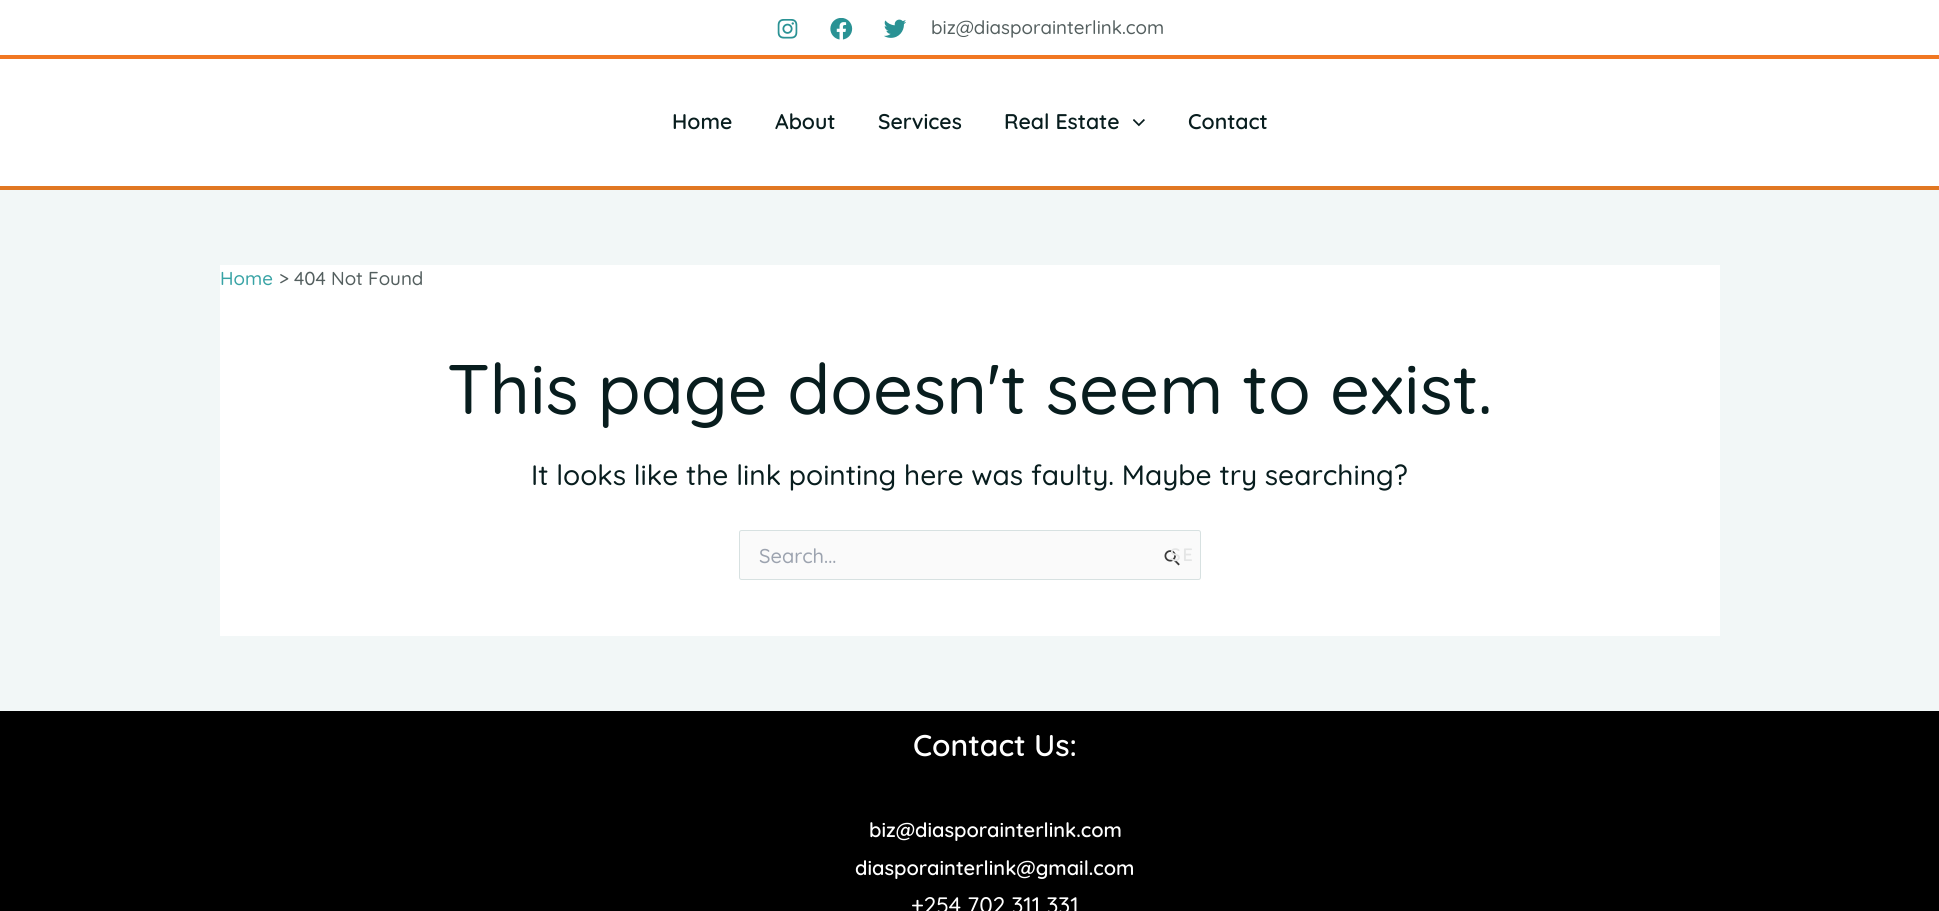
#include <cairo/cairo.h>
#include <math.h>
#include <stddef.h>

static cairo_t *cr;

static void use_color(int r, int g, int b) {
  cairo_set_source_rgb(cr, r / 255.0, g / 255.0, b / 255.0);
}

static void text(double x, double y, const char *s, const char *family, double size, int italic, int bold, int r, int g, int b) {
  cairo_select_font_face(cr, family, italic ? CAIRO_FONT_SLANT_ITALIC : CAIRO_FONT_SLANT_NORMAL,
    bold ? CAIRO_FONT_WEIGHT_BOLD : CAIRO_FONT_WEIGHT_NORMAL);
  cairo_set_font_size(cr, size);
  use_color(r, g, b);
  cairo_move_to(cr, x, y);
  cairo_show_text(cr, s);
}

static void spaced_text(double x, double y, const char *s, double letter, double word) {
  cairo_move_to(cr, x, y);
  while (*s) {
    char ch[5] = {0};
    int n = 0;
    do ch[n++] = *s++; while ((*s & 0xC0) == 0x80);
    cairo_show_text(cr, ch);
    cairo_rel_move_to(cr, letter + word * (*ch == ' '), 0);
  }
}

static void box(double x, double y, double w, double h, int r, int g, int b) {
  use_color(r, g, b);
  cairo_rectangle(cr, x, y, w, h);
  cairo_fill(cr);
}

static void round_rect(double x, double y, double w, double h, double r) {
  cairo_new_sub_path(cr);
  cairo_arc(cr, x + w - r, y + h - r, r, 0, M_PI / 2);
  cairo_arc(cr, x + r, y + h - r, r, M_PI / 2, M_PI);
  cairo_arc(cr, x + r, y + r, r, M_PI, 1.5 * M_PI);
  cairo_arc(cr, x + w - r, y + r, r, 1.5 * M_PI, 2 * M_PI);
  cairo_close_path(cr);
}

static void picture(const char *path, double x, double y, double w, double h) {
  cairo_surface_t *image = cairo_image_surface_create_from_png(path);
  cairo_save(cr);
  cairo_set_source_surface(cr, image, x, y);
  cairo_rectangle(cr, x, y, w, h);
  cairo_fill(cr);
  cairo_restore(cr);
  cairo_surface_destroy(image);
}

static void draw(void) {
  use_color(242, 247, 247);
  cairo_paint(cr);
  box(0, 0, 1939, 55, 255, 255, 255);
  box(0, 55, 1939, 4, 241, 119, 34);
  picture("img_01.png", 777, 19, 21, 20);
  picture("img_02.png", 830, 18, 23, 22);
  picture("img_03.png", 884, 19, 22, 19);
  box(0, 59, 1939, 127, 255, 255, 255);
  box(0, 186, 1939, 4, 225, 119, 34);
  picture("img_04.png", 1133, 119, 12, 8);
  box(220, 265, 1500, 371, 255, 255, 255);
  use_color(250, 250, 250);
  round_rect(739.5, 530.5, 461, 49, 2);
  cairo_fill_preserve(cr);
  use_color(215, 225, 225);
  cairo_set_line_width(cr, 1);
  cairo_stroke(cr);
  picture("img_05.png", 1164, 550, 16, 16);
  box(0, 711, 1939, 200, 0, 0, 0);
  text(931, 34, "biz@diasporainterlink.com", "Quicksand Medium", 18.75, 0, 0, 84, 95, 95);
  text(672, 129, "Home", "Quicksand SemiBold", 21.25, 0, 0, 8, 29, 30);
  text(775, 129, "About", "Quicksand SemiBold", 21.25, 0, 0, 8, 29, 30);
  text(878, 129, "Services", "Quicksand SemiBold", 21.25, 0, 0, 8, 29, 30);
  text(1004, 129, "Real Estate", "Quicksand SemiBold", 21.25, 0, 0, 8, 29, 30);
  text(1188, 129, "Contact", "Quicksand SemiBold", 21.25, 0, 0, 8, 29, 30);
  text(220, 285, "Home", "Quicksand Medium", 18.75, 0, 0, 56, 163, 165);
  text(279, 285, ">", "Quicksand Medium", 18.75, 0, 0, 84, 95, 95);
  text(294, 285, "404 Not Found", "Quicksand Medium", 18.75, 0, 0, 84, 95, 95);
  text(447, 414, "This page doesn't seem to exist.", "Quicksand Medium", 70, 0, 0, 8, 29, 30);
  text(531, 485, "It looks like the link pointing here was faulty. Maybe try searching?", "Quicksand Medium", 28.1, 0, 0, 8, 29, 30);
  text(759, 563, "Search...", "Quicksand Medium", 20, 0, 0, 156, 163, 175);
  cairo_select_font_face(cr, "Quicksand SemiBold", CAIRO_FONT_SLANT_NORMAL, CAIRO_FONT_WEIGHT_NORMAL);
  cairo_set_font_size(cr, 18);
  use_color(228, 229, 229);
  spaced_text(1170, 561, "SE", 2, 0);
  text(913, 756, "Contact Us:", "Quicksand SemiBold", 30, 0, 0, 255, 255, 255);
  text(869, 837, "biz@diasporainterlink.com", "Quicksand SemiBold", 20, 0, 0, 255, 255, 255);
  text(855, 875, "diasporainterlink@gmail.com", "Quicksand SemiBold", 20, 0, 0, 255, 255, 255);
  text(911, 913, "+254 702 311 331", "Quicksand Medium", 22.5, 0, 0, 255, 255, 255);
}

int main(void) {
  cairo_surface_t *surface = cairo_image_surface_create(CAIRO_FORMAT_RGB24, 1939, 911);
  cr = cairo_create(surface);
  cairo_font_options_t *options = cairo_font_options_create();
  cairo_font_options_set_hint_metrics(options, CAIRO_HINT_METRICS_OFF);
  cairo_font_options_set_hint_style(options, CAIRO_HINT_STYLE_NONE);
  cairo_set_font_options(cr, options);
  cairo_set_miter_limit(cr, 4);
  draw();
  cairo_surface_write_to_png(surface, "out.png");
  cairo_font_options_destroy(options);
  cairo_destroy(cr);
  cairo_surface_destroy(surface);
  return 0;
}
